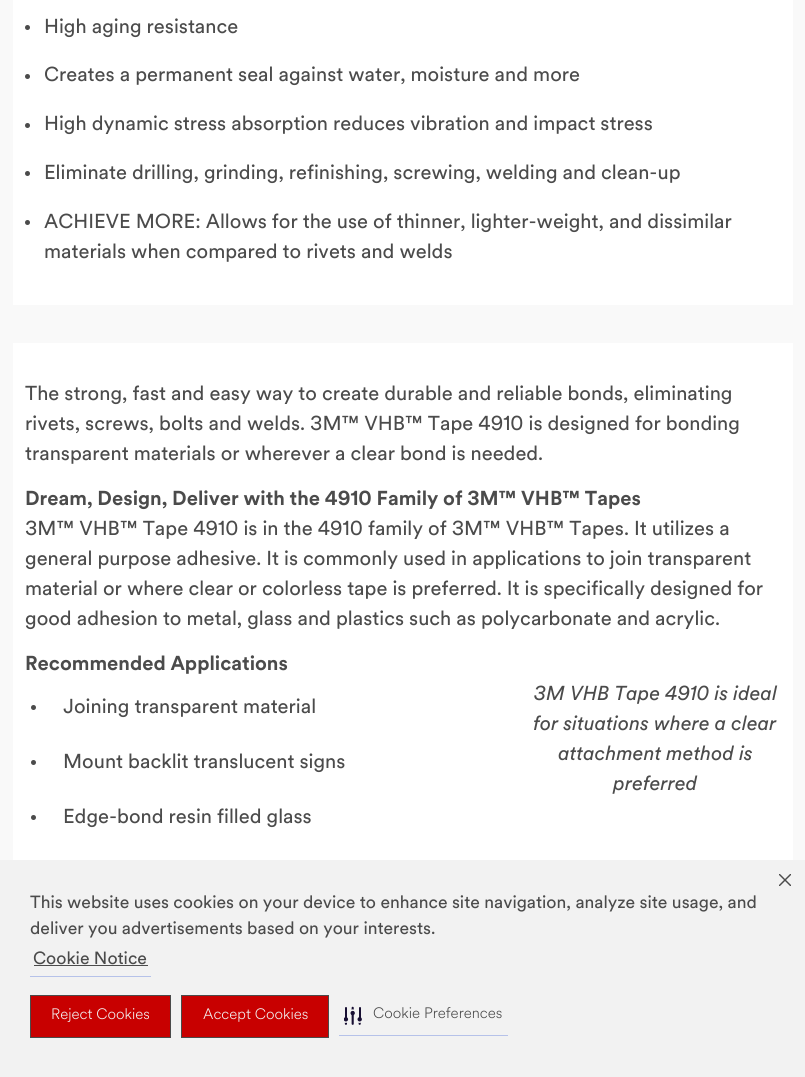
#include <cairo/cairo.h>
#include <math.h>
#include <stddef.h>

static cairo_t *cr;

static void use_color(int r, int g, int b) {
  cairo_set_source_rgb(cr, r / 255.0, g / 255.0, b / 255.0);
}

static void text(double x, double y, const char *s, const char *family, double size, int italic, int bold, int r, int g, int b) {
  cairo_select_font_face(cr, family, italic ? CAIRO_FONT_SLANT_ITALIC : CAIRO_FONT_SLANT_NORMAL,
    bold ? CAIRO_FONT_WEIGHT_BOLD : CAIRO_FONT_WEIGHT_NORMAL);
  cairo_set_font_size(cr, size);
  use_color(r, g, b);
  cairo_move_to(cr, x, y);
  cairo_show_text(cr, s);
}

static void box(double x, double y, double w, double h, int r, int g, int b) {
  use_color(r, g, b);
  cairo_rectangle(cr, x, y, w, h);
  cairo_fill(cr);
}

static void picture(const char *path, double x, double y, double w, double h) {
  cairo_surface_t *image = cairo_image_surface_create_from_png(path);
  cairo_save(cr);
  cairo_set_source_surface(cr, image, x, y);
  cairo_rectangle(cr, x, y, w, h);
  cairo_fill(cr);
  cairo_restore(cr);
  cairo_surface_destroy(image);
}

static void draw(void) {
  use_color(249, 249, 249);
  cairo_paint(cr);
  box(13, 0, 780, 305, 255, 255, 255);
  use_color(75, 75, 75);
  cairo_arc(cr, 27.5, 27.5, 2.5, 0, 2 * M_PI);
  cairo_fill(cr);
  cairo_arc(cr, 27.5, 76.5, 2.5, 0, 2 * M_PI);
  cairo_fill(cr);
  cairo_arc(cr, 27.5, 125.5, 2.5, 0, 2 * M_PI);
  cairo_fill(cr);
  cairo_arc(cr, 27.5, 173.5, 2.5, 0, 2 * M_PI);
  cairo_fill(cr);
  cairo_arc(cr, 27.5, 222.5, 2.5, 0, 2 * M_PI);
  cairo_fill(cr);
  box(13, 343, 780, 517, 255, 255, 255);
  use_color(75, 75, 75);
  cairo_arc(cr, 33.5, 707.5, 2.5, 0, 2 * M_PI);
  cairo_fill(cr);
  cairo_arc(cr, 33.5, 762.5, 2.5, 0, 2 * M_PI);
  cairo_fill(cr);
  cairo_arc(cr, 33.5, 817.5, 2.5, 0, 2 * M_PI);
  cairo_fill(cr);
  box(0, 860, 805, 217, 242, 242, 242);
  box(30, 976, 121, 1, 182, 194, 233);
  box(34, 965, 114, 1, 75, 75, 75);
  picture("img_01.png", 779, 874, 12, 12);
  use_color(200, 0, 0);
  cairo_rectangle(cr, 30.5, 995.5, 140, 42);
  cairo_fill_preserve(cr);
  use_color(75, 75, 75);
  cairo_set_line_width(cr, 1);
  cairo_stroke(cr);
  use_color(200, 0, 0);
  cairo_rectangle(cr, 181.5, 995.5, 147, 42);
  cairo_fill_preserve(cr);
  use_color(75, 75, 75);
  cairo_stroke(cr);
  box(339, 1035, 169, 1, 182, 194, 233);
  picture("img_02.png", 344, 1006, 18, 19);
  text(44, 33, "High aging resistance", "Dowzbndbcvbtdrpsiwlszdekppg", 20, 0, 0, 75, 75, 75);
  text(44, 81, "Creates a permanent seal against water, moisture and more", "Dowzbndbcvbtdrpsiwlszdekppg", 20, 0, 0, 75, 75, 75);
  text(44, 130, "High dynamic stress absorption reduces vibration and impact stress", "Dowzbndbcvbtdrpsiwlszdekppg", 20, 0, 0, 75, 75, 75);
  text(44, 179, "Eliminate drilling, grinding, refinishing, screwing, welding and clean-up", "Dowzbndbcvbtdrpsiwlszdekppg", 20, 0, 0, 75, 75, 75);
  text(44, 228, "ACHIEVE MORE: Allows for the use of thinner, lighter-weight, and dissimilar", "Dowzbndbcvbtdrpsiwlszdekppg", 20, 0, 0, 75, 75, 75);
  text(44, 258, "materials when compared to rivets and welds", "Dowzbndbcvbtdrpsiwlszdekppg", 20, 0, 0, 75, 75, 75);
  text(25, 400, "The strong, fast and easy way to create durable and reliable bonds, eliminating", "Dowzbndbcvbtdrpsiwlszdekppg", 20, 0, 0, 75, 75, 75);
  text(25, 430, "rivets, screws, bolts and welds. 3M™ VHB™ Tape 4910 is designed for bonding", "Dowzbndbcvbtdrpsiwlszdekppg", 20, 0, 0, 75, 75, 75);
  text(25, 460, "transparent materials or wherever a clear bond is needed.", "Dowzbndbcvbtdrpsiwlszdekppg", 20, 0, 0, 75, 75, 75);
  text(25, 505, "Dream, Design, Deliver with the 4910 Family of 3M™ VHB™ Tapes", "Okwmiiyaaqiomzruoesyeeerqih", 20, 0, 1, 75, 75, 75);
  text(25, 535, "3M™ VHB™ Tape 4910 is in the 4910 family of 3M™ VHB™ Tapes. It utilizes a", "Dowzbndbcvbtdrpsiwlszdekppg", 20, 0, 0, 75, 75, 75);
  text(25, 565, "general purpose adhesive. It is commonly used in applications to join transparent", "Dowzbndbcvbtdrpsiwlszdekppg", 20, 0, 0, 75, 75, 75);
  text(25, 595, "material or where clear or colorless tape is preferred. It is specifically designed for", "Dowzbndbcvbtdrpsiwlszdekppg", 20, 0, 0, 75, 75, 75);
  text(25, 625, "good adhesion to metal, glass and plastics such as polycarbonate and acrylic.", "Dowzbndbcvbtdrpsiwlszdekppg", 20, 0, 0, 75, 75, 75);
  text(25, 670, "Recommended Applications", "Okwmiiyaaqiomzruoesyeeerqih", 20, 0, 1, 75, 75, 75);
  text(63, 713, "Joining transparent material", "Dowzbndbcvbtdrpsiwlszdekppg", 20, 0, 0, 75, 75, 75);
  text(63, 768, "Mount backlit translucent signs", "Dowzbndbcvbtdrpsiwlszdekppg", 20, 0, 0, 75, 75, 75);
  text(63, 823, "Edge-bond resin filled glass", "Dowzbndbcvbtdrpsiwlszdekppg", 20, 0, 0, 75, 75, 75);
  text(534, 700, "3M VHB Tape 4910 is ideal", "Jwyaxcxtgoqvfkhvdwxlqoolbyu", 20, 1, 0, 75, 75, 75);
  text(533, 730, "for situations where a clear", "Jwyaxcxtgoqvfkhvdwxlqoolbyu", 20, 1, 0, 75, 75, 75);
  text(558, 760, "attachment method is", "Jwyaxcxtgoqvfkhvdwxlqoolbyu", 20, 1, 0, 75, 75, 75);
  text(613, 790, "preferred", "Jwyaxcxtgoqvfkhvdwxlqoolbyu", 20, 1, 0, 75, 75, 75);
  text(30, 908, "This website uses cookies on your device to enhance site navigation, analyze site usage, and", "Dowzbndbcvbtdrpsiwlszdekppg", 17.5, 0, 0, 75, 75, 75);
  text(30, 934, "deliver you advertisements based on your interests.", "Dowzbndbcvbtdrpsiwlszdekppg", 17.5, 0, 0, 75, 75, 75);
  text(33, 964, "Cookie Notice", "Dowzbndbcvbtdrpsiwlszdekppg", 17.5, 0, 0, 75, 75, 75);
  text(51, 1019, "Reject Cookies", "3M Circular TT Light", 15, 0, 0, 242, 242, 242);
  text(203, 1019, "Accept Cookies", "3M Circular TT Light", 15, 0, 0, 242, 242, 242);
  text(373, 1018, "Cookie Preferences", "3M Circular TT Light", 15, 0, 0, 75, 75, 75);
}

int main(void) {
  cairo_surface_t *surface = cairo_image_surface_create(CAIRO_FORMAT_RGB24, 805, 1077);
  cr = cairo_create(surface);
  cairo_font_options_t *options = cairo_font_options_create();
  cairo_font_options_set_hint_metrics(options, CAIRO_HINT_METRICS_OFF);
  cairo_font_options_set_hint_style(options, CAIRO_HINT_STYLE_NONE);
  cairo_set_font_options(cr, options);
  cairo_set_miter_limit(cr, 4);
  draw();
  cairo_surface_write_to_png(surface, "out.png");
  cairo_font_options_destroy(options);
  cairo_destroy(cr);
  cairo_surface_destroy(surface);
  return 0;
}
